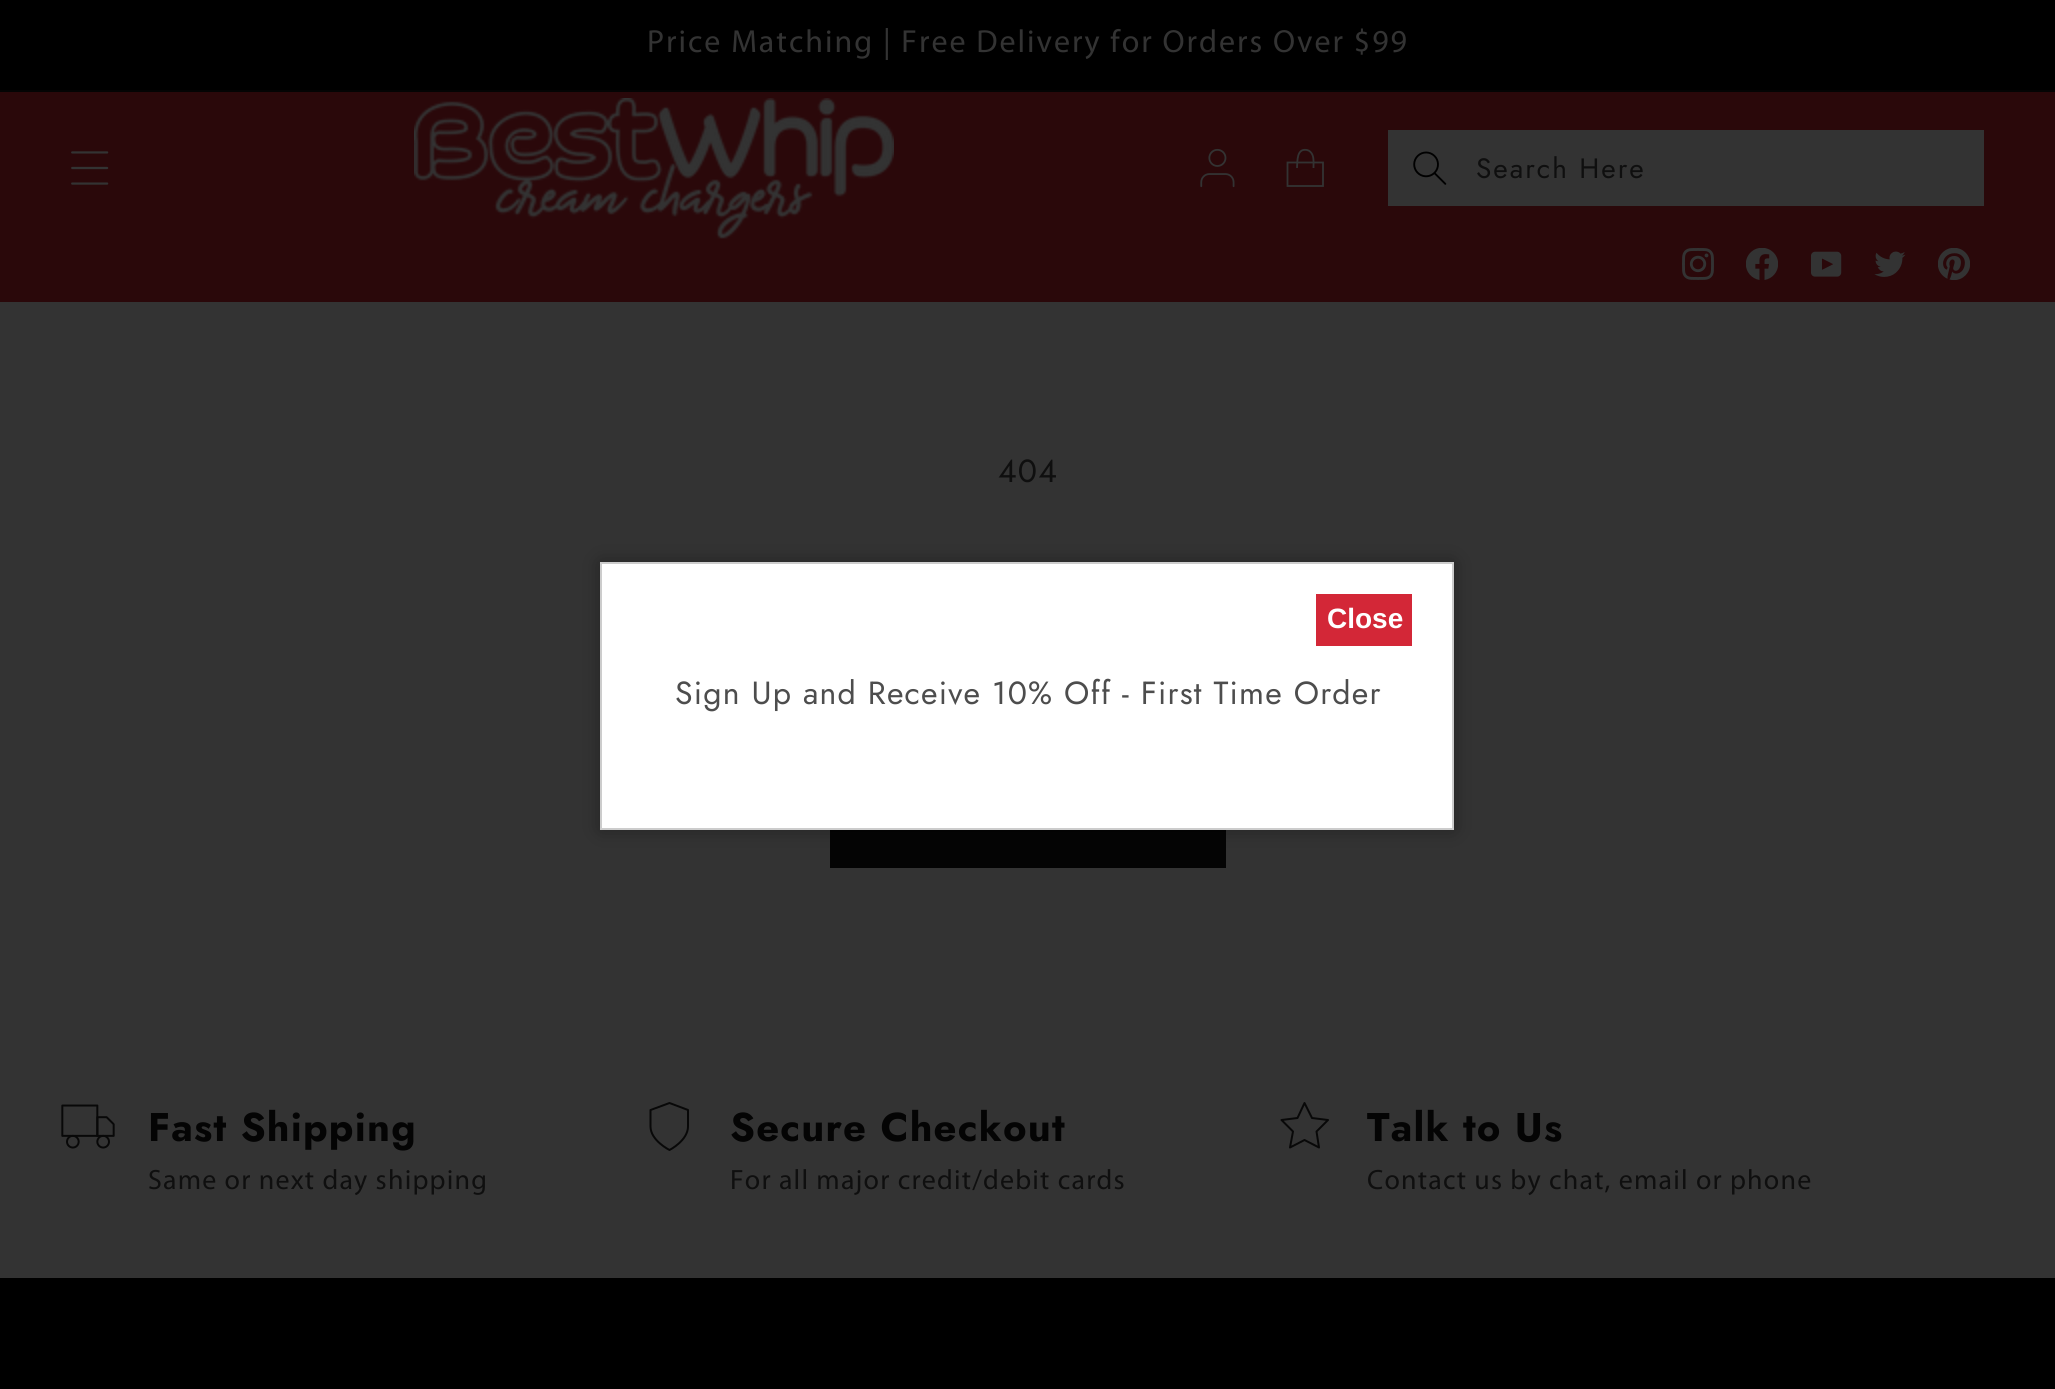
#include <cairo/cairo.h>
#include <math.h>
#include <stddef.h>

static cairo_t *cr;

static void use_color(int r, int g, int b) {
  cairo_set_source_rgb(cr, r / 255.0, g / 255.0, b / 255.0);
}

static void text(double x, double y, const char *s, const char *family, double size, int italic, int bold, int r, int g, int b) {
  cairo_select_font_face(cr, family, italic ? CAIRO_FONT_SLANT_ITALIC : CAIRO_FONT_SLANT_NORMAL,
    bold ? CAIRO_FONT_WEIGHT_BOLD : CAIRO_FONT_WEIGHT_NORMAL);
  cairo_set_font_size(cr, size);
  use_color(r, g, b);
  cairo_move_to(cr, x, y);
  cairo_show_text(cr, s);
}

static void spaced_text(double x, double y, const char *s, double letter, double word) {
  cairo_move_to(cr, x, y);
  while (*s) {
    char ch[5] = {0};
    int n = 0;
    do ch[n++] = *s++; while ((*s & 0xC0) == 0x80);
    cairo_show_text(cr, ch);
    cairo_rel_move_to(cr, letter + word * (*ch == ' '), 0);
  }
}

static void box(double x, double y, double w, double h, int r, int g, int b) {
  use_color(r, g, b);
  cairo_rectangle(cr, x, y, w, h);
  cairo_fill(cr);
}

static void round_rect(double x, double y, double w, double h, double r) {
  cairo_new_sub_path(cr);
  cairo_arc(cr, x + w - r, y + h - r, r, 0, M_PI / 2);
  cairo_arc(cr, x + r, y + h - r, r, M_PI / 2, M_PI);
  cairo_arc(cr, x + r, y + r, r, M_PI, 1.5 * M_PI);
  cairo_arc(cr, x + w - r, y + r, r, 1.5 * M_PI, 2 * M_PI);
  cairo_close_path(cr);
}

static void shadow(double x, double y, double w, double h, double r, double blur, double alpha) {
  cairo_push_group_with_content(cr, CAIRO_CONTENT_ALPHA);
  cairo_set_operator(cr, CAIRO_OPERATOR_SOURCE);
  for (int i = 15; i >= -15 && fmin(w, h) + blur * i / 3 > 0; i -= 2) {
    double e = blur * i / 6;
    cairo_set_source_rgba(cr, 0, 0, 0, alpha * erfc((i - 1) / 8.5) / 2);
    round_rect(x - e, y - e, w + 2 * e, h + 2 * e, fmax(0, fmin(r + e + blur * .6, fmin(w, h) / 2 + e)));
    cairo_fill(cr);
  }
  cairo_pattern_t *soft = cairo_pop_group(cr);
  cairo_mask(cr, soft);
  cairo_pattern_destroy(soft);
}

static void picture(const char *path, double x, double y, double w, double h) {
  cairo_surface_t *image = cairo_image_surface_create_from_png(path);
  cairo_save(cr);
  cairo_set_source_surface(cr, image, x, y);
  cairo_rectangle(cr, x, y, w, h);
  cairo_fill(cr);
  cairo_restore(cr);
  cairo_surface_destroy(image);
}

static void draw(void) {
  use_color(51, 51, 51);
  cairo_paint(cr);
  box(0, 0, 2055, 90, 0, 0, 0);
  box(0, 90, 2055, 2, 4, 4, 4);
  box(0, 92, 2055, 210, 42, 8, 10);
  picture("img_01.png", 1682, 248, 32, 32);
  picture("img_02.png", 1746, 248, 32, 32);
  picture("img_03.png", 1811, 251, 31, 26);
  picture("img_04.png", 1874, 251, 32, 26);
  picture("img_05.png", 1938, 248, 32, 32);
  picture("img_06.png", 71, 151, 38, 34);
  picture("img_07.png", 414, 98, 480, 141);
  picture("img_08.png", 1200, 148, 35, 40);
  cairo_new_path(cr);
  cairo_move_to(cr, 1313.5, 168);
  cairo_curve_to(cr, 1313.5, 163.5, 1314, 159, 1312.5, 155);
  cairo_curve_to(cr, 1311.5, 152.5, 1309.5, 150.5, 1307, 150);
  cairo_curve_to(cr, 1296.5, 148, 1297.5, 161, 1297, 168);
  use_color(51, 51, 51);
  cairo_set_line_width(cr, 1.8);
  cairo_set_line_join(cr, CAIRO_LINE_JOIN_BEVEL);
  cairo_stroke(cr);
  cairo_new_path(cr);
  cairo_move_to(cr, 1323, 186);
  cairo_line_to(cr, 1323, 162.5);
  cairo_line_to(cr, 1287.5, 162.5);
  cairo_line_to(cr, 1287.5, 186);
  cairo_close_path(cr);
  cairo_set_line_join(cr, CAIRO_LINE_JOIN_MITER);
  cairo_stroke(cr);
  box(1388, 130, 596, 76, 51, 51, 51);
  picture("img_09.png", 1413, 151, 34, 34);
  box(830, 830, 396, 38, 4, 4, 4);
  use_color(0, 0, 0);
  shadow(600, 562, 854, 268, 0, 10, 0.3);
  use_color(255, 255, 255);
  cairo_rectangle(cr, 601, 563, 852, 266);
  cairo_fill_preserve(cr);
  use_color(204, 204, 204);
  cairo_set_line_width(cr, 2);
  cairo_stroke(cr);
  box(1316, 594, 96, 52, 211, 39, 55);
  picture("img_10.png", 61, 1104, 54, 45);
  cairo_new_path(cr);
  cairo_move_to(cr, 669.5, 1150);
  cairo_curve_to(cr, 669.5, 1150, 688, 1140.5, 688, 1126.5);
  cairo_line_to(cr, 688, 1110);
  cairo_line_to(cr, 669.5, 1103);
  cairo_line_to(cr, 650.5, 1110);
  cairo_line_to(cr, 650.5, 1126.5);
  cairo_curve_to(cr, 650.5, 1140.5, 669.5, 1150, 669.5, 1150);
  cairo_close_path(cr);
  use_color(8, 8, 8);
  cairo_set_line_cap(cr, CAIRO_LINE_CAP_ROUND);
  cairo_set_line_join(cr, CAIRO_LINE_JOIN_ROUND);
  cairo_stroke(cr);
  cairo_new_path(cr);
  cairo_move_to(cr, 1304.5, 1103);
  cairo_line_to(cr, 1312, 1118);
  cairo_line_to(cr, 1328, 1120);
  cairo_line_to(cr, 1316.5, 1131.5);
  cairo_line_to(cr, 1319, 1147.5);
  cairo_line_to(cr, 1304.5, 1140);
  cairo_line_to(cr, 1290, 1147.5);
  cairo_line_to(cr, 1293, 1131.5);
  cairo_line_to(cr, 1281.5, 1120);
  cairo_line_to(cr, 1297.5, 1118);
  cairo_close_path(cr);
  cairo_stroke(cr);
  box(0, 1278, 2055, 111, 0, 0, 0);
  cairo_select_font_face(cr, "Myriad", CAIRO_FONT_SLANT_NORMAL, CAIRO_FONT_WEIGHT_NORMAL);
  cairo_set_font_size(cr, 32);
  use_color(51, 51, 51);
  spaced_text(647, 52, "Price Matching | Free Delivery for Orders Over $99", 2, 0);
  cairo_select_font_face(cr, "Jost", CAIRO_FONT_SLANT_NORMAL, CAIRO_FONT_WEIGHT_NORMAL);
  cairo_set_font_size(cr, 28);
  use_color(15, 15, 15);
  spaced_text(1476, 178, "Search Here", 2, 0);
  cairo_set_font_size(cr, 32);
  spaced_text(998, 482, "404", 1.2, 0);
  text(1327, 628, "Close", "Liberation Sans", 28, 0, 1, 255, 255, 255);
  cairo_select_font_face(cr, "Jost", CAIRO_FONT_SLANT_NORMAL, CAIRO_FONT_WEIGHT_NORMAL);
  cairo_set_font_size(cr, 32);
  use_color(77, 77, 77);
  spaced_text(675, 704, "Sign Up and Receive 10% Off - First Time Order", 1.2, 0);
  cairo_select_font_face(cr, "Jost", CAIRO_FONT_SLANT_NORMAL, CAIRO_FONT_WEIGHT_BOLD);
  cairo_set_font_size(cr, 40);
  use_color(4, 4, 4);
  spaced_text(148, 1141, "Fast Shipping", 1.2, 0);
  cairo_select_font_face(cr, "Myriad", CAIRO_FONT_SLANT_NORMAL, CAIRO_FONT_WEIGHT_NORMAL);
  cairo_set_font_size(cr, 28);
  use_color(15, 15, 15);
  spaced_text(148, 1189, "Same or next day shipping", 1.2, 0);
  cairo_select_font_face(cr, "Jost", CAIRO_FONT_SLANT_NORMAL, CAIRO_FONT_WEIGHT_BOLD);
  cairo_set_font_size(cr, 40);
  use_color(4, 4, 4);
  spaced_text(730, 1141, "Secure Checkout", 1.2, 0);
  cairo_select_font_face(cr, "Myriad", CAIRO_FONT_SLANT_NORMAL, CAIRO_FONT_WEIGHT_NORMAL);
  cairo_set_font_size(cr, 28);
  use_color(15, 15, 15);
  spaced_text(730, 1189, "For all major credit/debit cards", 1.2, 0);
  cairo_select_font_face(cr, "Jost", CAIRO_FONT_SLANT_NORMAL, CAIRO_FONT_WEIGHT_BOLD);
  cairo_set_font_size(cr, 40);
  use_color(4, 4, 4);
  spaced_text(1367, 1141, "Talk to Us", 1.2, 0);
  cairo_select_font_face(cr, "Myriad", CAIRO_FONT_SLANT_NORMAL, CAIRO_FONT_WEIGHT_NORMAL);
  cairo_set_font_size(cr, 28);
  use_color(15, 15, 15);
  spaced_text(1367, 1189, "Contact us by chat, email or phone", 1.2, 0);
}

int main(void) {
  cairo_surface_t *surface = cairo_image_surface_create(CAIRO_FORMAT_RGB24, 2055, 1389);
  cr = cairo_create(surface);
  cairo_font_options_t *options = cairo_font_options_create();
  cairo_font_options_set_hint_metrics(options, CAIRO_HINT_METRICS_OFF);
  cairo_font_options_set_hint_style(options, CAIRO_HINT_STYLE_NONE);
  cairo_set_font_options(cr, options);
  cairo_set_miter_limit(cr, 4);
  draw();
  cairo_surface_write_to_png(surface, "out.png");
  cairo_font_options_destroy(options);
  cairo_destroy(cr);
  cairo_surface_destroy(surface);
  return 0;
}
